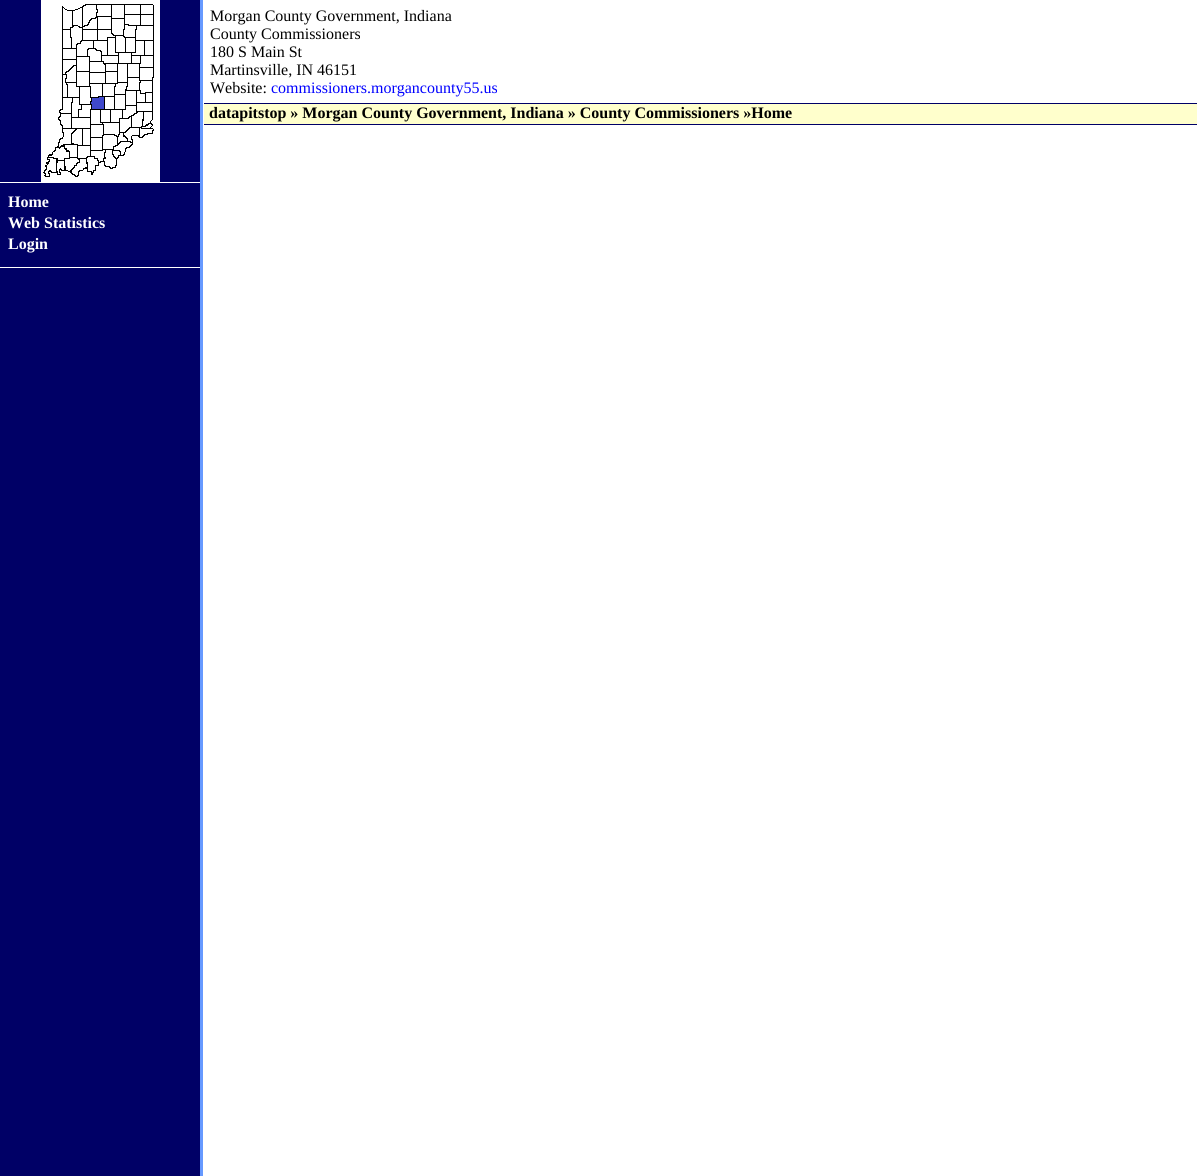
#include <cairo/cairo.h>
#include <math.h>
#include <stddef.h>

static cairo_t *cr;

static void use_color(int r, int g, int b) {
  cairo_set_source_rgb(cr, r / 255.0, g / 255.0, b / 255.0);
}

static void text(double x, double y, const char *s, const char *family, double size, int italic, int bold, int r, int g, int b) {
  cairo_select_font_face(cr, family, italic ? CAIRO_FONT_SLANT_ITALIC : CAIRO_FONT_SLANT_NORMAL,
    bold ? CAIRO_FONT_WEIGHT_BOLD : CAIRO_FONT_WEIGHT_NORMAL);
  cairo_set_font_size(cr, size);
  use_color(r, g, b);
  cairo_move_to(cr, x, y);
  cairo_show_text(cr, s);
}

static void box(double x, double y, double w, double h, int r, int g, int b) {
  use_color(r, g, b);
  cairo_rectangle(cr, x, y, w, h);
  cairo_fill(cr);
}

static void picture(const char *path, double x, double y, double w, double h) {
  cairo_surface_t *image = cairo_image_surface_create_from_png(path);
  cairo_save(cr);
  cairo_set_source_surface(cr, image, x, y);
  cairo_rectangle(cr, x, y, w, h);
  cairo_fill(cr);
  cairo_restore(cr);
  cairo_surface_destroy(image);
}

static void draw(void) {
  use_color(255, 255, 255);
  cairo_paint(cr);
  box(204, 104, 993, 20, 255, 255, 204);
  box(204, 103, 993, 1, 0, 0, 102);
  box(204, 124, 993, 1, 0, 0, 102);
  box(0, 0, 200, 1176, 0, 0, 102);
  box(200, 0, 3, 1176, 102, 153, 255);
  picture("img_01.png", 41, 0, 119, 182);
  box(0, 182, 200, 1, 255, 255, 255);
  box(0, 267, 200, 1, 255, 255, 255);
  text(210, 21, "Morgan County Government, Indiana", "Liberation Serif", 16, 0, 0, 0, 0, 0);
  text(210, 39, "County Commissioners", "Liberation Serif", 16, 0, 0, 0, 0, 0);
  text(210, 57, "180 S Main St", "Liberation Serif", 16, 0, 0, 0, 0, 0);
  text(210, 75, "Martinsville, IN 46151", "Liberation Serif", 16, 0, 0, 0, 0, 0);
  text(210, 93, "Website:", "Liberation Serif", 16, 0, 0, 0, 0, 0);
  text(271, 93, "commissioners.morgancounty55.us", "Liberation Serif", 16, 0, 0, 0, 0, 255);
  text(209, 118, "datapitstop » Morgan County Government, Indiana » County Commissioners »Home", "Liberation Serif", 16, 0, 1, 0, 0, 0);
  text(8, 207, "Home", "Liberation Serif", 16, 0, 1, 255, 255, 255);
  text(8, 228, "Web Statistics", "Liberation Serif", 16, 0, 1, 255, 255, 255);
  text(8, 249, "Login", "Liberation Serif", 16, 0, 1, 255, 255, 255);
}

int main(void) {
  cairo_surface_t *surface = cairo_image_surface_create(CAIRO_FORMAT_RGB24, 1198, 1176);
  cr = cairo_create(surface);
  cairo_font_options_t *options = cairo_font_options_create();
  cairo_font_options_set_hint_metrics(options, CAIRO_HINT_METRICS_OFF);
  cairo_font_options_set_hint_style(options, CAIRO_HINT_STYLE_NONE);
  cairo_set_font_options(cr, options);
  cairo_set_miter_limit(cr, 4);
  draw();
  cairo_surface_write_to_png(surface, "out.png");
  cairo_font_options_destroy(options);
  cairo_destroy(cr);
  cairo_surface_destroy(surface);
  return 0;
}
